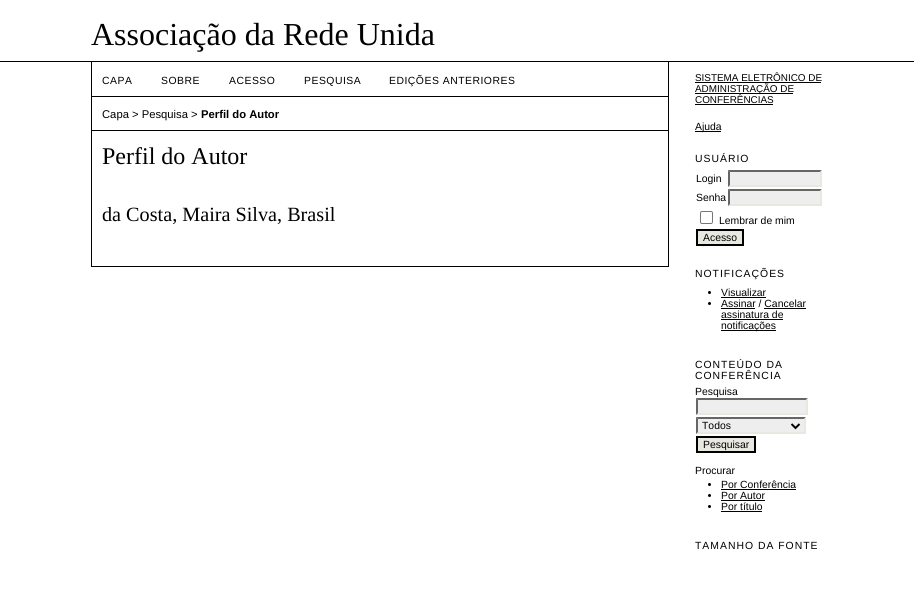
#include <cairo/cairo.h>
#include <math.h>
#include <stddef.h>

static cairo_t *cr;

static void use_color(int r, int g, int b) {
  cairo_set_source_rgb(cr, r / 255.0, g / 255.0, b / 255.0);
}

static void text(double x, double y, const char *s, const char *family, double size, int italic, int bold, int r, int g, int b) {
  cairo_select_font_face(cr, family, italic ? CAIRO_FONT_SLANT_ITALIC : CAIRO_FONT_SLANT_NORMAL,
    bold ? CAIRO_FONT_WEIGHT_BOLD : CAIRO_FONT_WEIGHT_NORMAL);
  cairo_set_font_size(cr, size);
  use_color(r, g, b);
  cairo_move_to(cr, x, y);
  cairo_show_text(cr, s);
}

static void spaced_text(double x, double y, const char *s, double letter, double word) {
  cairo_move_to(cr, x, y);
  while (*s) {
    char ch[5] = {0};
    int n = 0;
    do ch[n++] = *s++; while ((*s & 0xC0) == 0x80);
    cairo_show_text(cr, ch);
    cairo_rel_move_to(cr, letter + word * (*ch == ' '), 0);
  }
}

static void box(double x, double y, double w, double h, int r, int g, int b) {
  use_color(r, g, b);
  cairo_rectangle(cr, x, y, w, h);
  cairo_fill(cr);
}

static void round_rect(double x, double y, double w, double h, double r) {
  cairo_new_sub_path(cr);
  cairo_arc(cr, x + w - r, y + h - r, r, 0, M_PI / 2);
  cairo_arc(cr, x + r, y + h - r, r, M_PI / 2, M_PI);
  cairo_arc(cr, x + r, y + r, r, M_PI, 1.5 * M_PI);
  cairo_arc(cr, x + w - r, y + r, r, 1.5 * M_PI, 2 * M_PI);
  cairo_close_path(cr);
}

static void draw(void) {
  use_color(255, 255, 255);
  cairo_paint(cr);
  box(0, 61, 914, 1, 0, 0, 0);
  box(668, 62, 1, 205, 0, 0, 0);
  box(91, 266, 578, 1, 0, 0, 0);
  box(91, 62, 1, 205, 0, 0, 0);
  box(92, 96, 576, 1, 0, 0, 0);
  box(92, 130, 576, 1, 0, 0, 0);
  box(695, 82, 126, 1, 0, 0, 0);
  box(695, 93, 98, 1, 0, 0, 0);
  box(695, 104, 78, 1, 0, 0, 0);
  box(695, 131, 26, 1, 0, 0, 0);
  box(728, 170, 94, 17, 238, 238, 238);
  use_color(102, 102, 102);
  cairo_new_path(cr);
  cairo_move_to(cr, 728, 170);
  cairo_line_to(cr, 822, 170);
  cairo_line_to(cr, 820, 172);
  cairo_line_to(cr, 730, 172);
  cairo_close_path(cr);
  cairo_fill(cr);
  use_color(232, 232, 225);
  cairo_new_path(cr);
  cairo_move_to(cr, 822, 170);
  cairo_line_to(cr, 822, 187);
  cairo_line_to(cr, 820, 185);
  cairo_line_to(cr, 820, 172);
  cairo_close_path(cr);
  cairo_fill(cr);
  cairo_new_path(cr);
  cairo_move_to(cr, 822, 187);
  cairo_line_to(cr, 728, 187);
  cairo_line_to(cr, 730, 185);
  cairo_line_to(cr, 820, 185);
  cairo_close_path(cr);
  cairo_fill(cr);
  use_color(102, 102, 102);
  cairo_new_path(cr);
  cairo_move_to(cr, 728, 187);
  cairo_line_to(cr, 728, 170);
  cairo_line_to(cr, 730, 172);
  cairo_line_to(cr, 730, 185);
  cairo_close_path(cr);
  cairo_fill(cr);
  box(728, 189, 94, 17, 238, 238, 238);
  use_color(102, 102, 102);
  cairo_new_path(cr);
  cairo_move_to(cr, 728, 189);
  cairo_line_to(cr, 822, 189);
  cairo_line_to(cr, 820, 191);
  cairo_line_to(cr, 730, 191);
  cairo_close_path(cr);
  cairo_fill(cr);
  use_color(232, 232, 225);
  cairo_new_path(cr);
  cairo_move_to(cr, 822, 189);
  cairo_line_to(cr, 822, 206);
  cairo_line_to(cr, 820, 204);
  cairo_line_to(cr, 820, 191);
  cairo_close_path(cr);
  cairo_fill(cr);
  cairo_new_path(cr);
  cairo_move_to(cr, 822, 206);
  cairo_line_to(cr, 728, 206);
  cairo_line_to(cr, 730, 204);
  cairo_line_to(cr, 820, 204);
  cairo_close_path(cr);
  cairo_fill(cr);
  use_color(102, 102, 102);
  cairo_new_path(cr);
  cairo_move_to(cr, 728, 206);
  cairo_line_to(cr, 728, 189);
  cairo_line_to(cr, 730, 191);
  cairo_line_to(cr, 730, 204);
  cairo_close_path(cr);
  cairo_fill(cr);
  round_rect(700.5, 211.5, 12, 12, 1.5);
  use_color(118, 118, 118);
  cairo_set_line_width(cr, 1);
  cairo_stroke(cr);
  use_color(232, 232, 225);
  cairo_rectangle(cr, 697, 230, 46, 15);
  cairo_fill_preserve(cr);
  use_color(0, 0, 0);
  cairo_set_line_width(cr, 2);
  cairo_stroke(cr);
  cairo_arc(cr, 709.5, 292.5, 1.5, 0, 2 * M_PI);
  cairo_fill(cr);
  box(721, 297, 45, 1, 0, 0, 0);
  cairo_arc(cr, 709.5, 303.5, 1.5, 0, 2 * M_PI);
  cairo_fill(cr);
  box(721, 308, 34, 1, 0, 0, 0);
  box(764, 308, 42, 1, 0, 0, 0);
  box(721, 319, 62, 1, 0, 0, 0);
  box(721, 330, 55, 1, 0, 0, 0);
  box(696, 398, 112, 17, 238, 238, 238);
  use_color(102, 102, 102);
  cairo_new_path(cr);
  cairo_move_to(cr, 696, 398);
  cairo_line_to(cr, 808, 398);
  cairo_line_to(cr, 806, 400);
  cairo_line_to(cr, 698, 400);
  cairo_close_path(cr);
  cairo_fill(cr);
  use_color(232, 232, 225);
  cairo_new_path(cr);
  cairo_move_to(cr, 808, 398);
  cairo_line_to(cr, 808, 415);
  cairo_line_to(cr, 806, 413);
  cairo_line_to(cr, 806, 400);
  cairo_close_path(cr);
  cairo_fill(cr);
  cairo_new_path(cr);
  cairo_move_to(cr, 808, 415);
  cairo_line_to(cr, 696, 415);
  cairo_line_to(cr, 698, 413);
  cairo_line_to(cr, 806, 413);
  cairo_close_path(cr);
  cairo_fill(cr);
  use_color(102, 102, 102);
  cairo_new_path(cr);
  cairo_move_to(cr, 696, 415);
  cairo_line_to(cr, 696, 398);
  cairo_line_to(cr, 698, 400);
  cairo_line_to(cr, 698, 413);
  cairo_close_path(cr);
  cairo_fill(cr);
  box(696, 417, 110, 17, 238, 238, 238);
  use_color(102, 102, 102);
  cairo_new_path(cr);
  cairo_move_to(cr, 696, 417);
  cairo_line_to(cr, 806, 417);
  cairo_line_to(cr, 804, 419);
  cairo_line_to(cr, 698, 419);
  cairo_close_path(cr);
  cairo_fill(cr);
  use_color(232, 232, 225);
  cairo_new_path(cr);
  cairo_move_to(cr, 806, 417);
  cairo_line_to(cr, 806, 434);
  cairo_line_to(cr, 804, 432);
  cairo_line_to(cr, 804, 419);
  cairo_close_path(cr);
  cairo_fill(cr);
  cairo_new_path(cr);
  cairo_move_to(cr, 806, 434);
  cairo_line_to(cr, 696, 434);
  cairo_line_to(cr, 698, 432);
  cairo_line_to(cr, 804, 432);
  cairo_close_path(cr);
  cairo_fill(cr);
  use_color(102, 102, 102);
  cairo_new_path(cr);
  cairo_move_to(cr, 696, 434);
  cairo_line_to(cr, 696, 417);
  cairo_line_to(cr, 698, 419);
  cairo_line_to(cr, 698, 432);
  cairo_close_path(cr);
  cairo_fill(cr);
  cairo_new_path(cr);
  cairo_move_to(cr, 791.5, 424);
  cairo_line_to(cr, 795.5, 428);
  cairo_line_to(cr, 799.5, 424);
  use_color(0, 0, 0);
  cairo_stroke(cr);
  use_color(232, 232, 225);
  cairo_rectangle(cr, 697, 437, 58, 15);
  cairo_fill_preserve(cr);
  use_color(0, 0, 0);
  cairo_stroke(cr);
  cairo_arc(cr, 709.5, 484.5, 1.5, 0, 2 * M_PI);
  cairo_fill(cr);
  box(721, 489, 75, 1, 0, 0, 0);
  cairo_arc(cr, 709.5, 495.5, 1.5, 0, 2 * M_PI);
  cairo_fill(cr);
  box(721, 500, 44, 1, 0, 0, 0);
  cairo_arc(cr, 709.5, 506.5, 1.5, 0, 2 * M_PI);
  cairo_fill(cr);
  box(721, 511, 41, 1, 0, 0, 0);
  text(91, 45, "Associação da Rede Unida", "Liberation Serif", 32, 0, 0, 0, 0, 0);
  cairo_select_font_face(cr, "Liberation Sans", CAIRO_FONT_SLANT_NORMAL, CAIRO_FONT_WEIGHT_NORMAL);
  cairo_set_font_size(cr, 10.4);
  spaced_text(102, 84, "CAPA", 0.5, 0);
  spaced_text(161, 84, "SOBRE", 0.5, 0);
  spaced_text(229, 84, "ACESSO", 0.5, 0);
  spaced_text(304, 84, "PESQUISA", 0.5, 0);
  spaced_text(389, 84, "EDIÇÕES ANTERIORES", 0.5, 0);
  text(102, 118, "Capa > Pesquisa >", "Liberation Sans", 11.25, 0, 0, 0, 0, 0);
  text(201, 118, "Perfil do Autor", "Liberation Sans", 11.25, 0, 1, 0, 0, 0);
  text(102, 164, "Perfil do Autor", "Liberation Serif", 24, 0, 0, 0, 0, 0);
  text(102, 221, "da Costa, Maira Silva, Brasil", "Liberation Serif", 20.2, 0, 0, 0, 0, 0);
  text(695, 81, "SISTEMA ELETRÔNICO DE", "Liberation Sans", 9.9, 0, 0, 0, 0, 0);
  text(695, 92, "ADMINISTRAÇÃO DE", "Liberation Sans", 9.9, 0, 0, 0, 0, 0);
  text(695, 103, "CONFERÊNCIAS", "Liberation Sans", 9.9, 0, 0, 0, 0, 0);
  text(695, 130, "Ajuda", "Liberation Sans", 10.4, 0, 0, 0, 0, 0);
  spaced_text(695, 162, "USUÁRIO", 1, 0);
  text(696, 182, "Login", "Liberation Sans", 10.4, 0, 0, 0, 0, 0);
  text(696, 201, "Senha", "Liberation Sans", 10.4, 0, 0, 0, 0, 0);
  text(719, 224, "Lembrar de mim", "Liberation Sans", 10.4, 0, 0, 0, 0, 0);
  text(703, 241, "Acesso", "Liberation Sans", 10.4, 0, 0, 0, 0, 0);
  spaced_text(695, 277, "NOTIFICAÇÕES", 1, 0);
  text(721, 296, "Visualizar", "Liberation Sans", 10.4, 0, 0, 0, 0, 0);
  text(721, 307, "Assinar / Cancelar", "Liberation Sans", 10.4, 0, 0, 0, 0, 0);
  text(721, 318, "assinatura de", "Liberation Sans", 10.4, 0, 0, 0, 0, 0);
  text(721, 329, "notificações", "Liberation Sans", 10.4, 0, 0, 0, 0, 0);
  spaced_text(695, 368, "CONTEÚDO DA", 1, 0);
  spaced_text(695, 379, "CONFERÊNCIA", 1, 0);
  text(695, 395, "Pesquisa", "Liberation Sans", 10.4, 0, 0, 0, 0, 0);
  text(702, 429, "Todos", "Liberation Sans", 10.4, 0, 0, 0, 0, 0);
  text(703, 448, "Pesquisar", "Liberation Sans", 10.4, 0, 0, 0, 0, 0);
  text(695, 474, "Procurar", "Liberation Sans", 10.4, 0, 0, 0, 0, 0);
  text(721, 488, "Por Conferência", "Liberation Sans", 10.4, 0, 0, 0, 0, 0);
  text(721, 499, "Por Autor", "Liberation Sans", 10.4, 0, 0, 0, 0, 0);
  text(721, 510, "Por título", "Liberation Sans", 10.4, 0, 0, 0, 0, 0);
  spaced_text(695, 549, "TAMANHO DA FONTE", 1, 0);
}

int main(void) {
  cairo_surface_t *surface = cairo_image_surface_create(CAIRO_FORMAT_RGB24, 914, 597);
  cr = cairo_create(surface);
  cairo_font_options_t *options = cairo_font_options_create();
  cairo_font_options_set_hint_metrics(options, CAIRO_HINT_METRICS_OFF);
  cairo_font_options_set_hint_style(options, CAIRO_HINT_STYLE_NONE);
  cairo_set_font_options(cr, options);
  cairo_set_miter_limit(cr, 4);
  draw();
  cairo_surface_write_to_png(surface, "out.png");
  cairo_font_options_destroy(options);
  cairo_destroy(cr);
  cairo_surface_destroy(surface);
  return 0;
}
